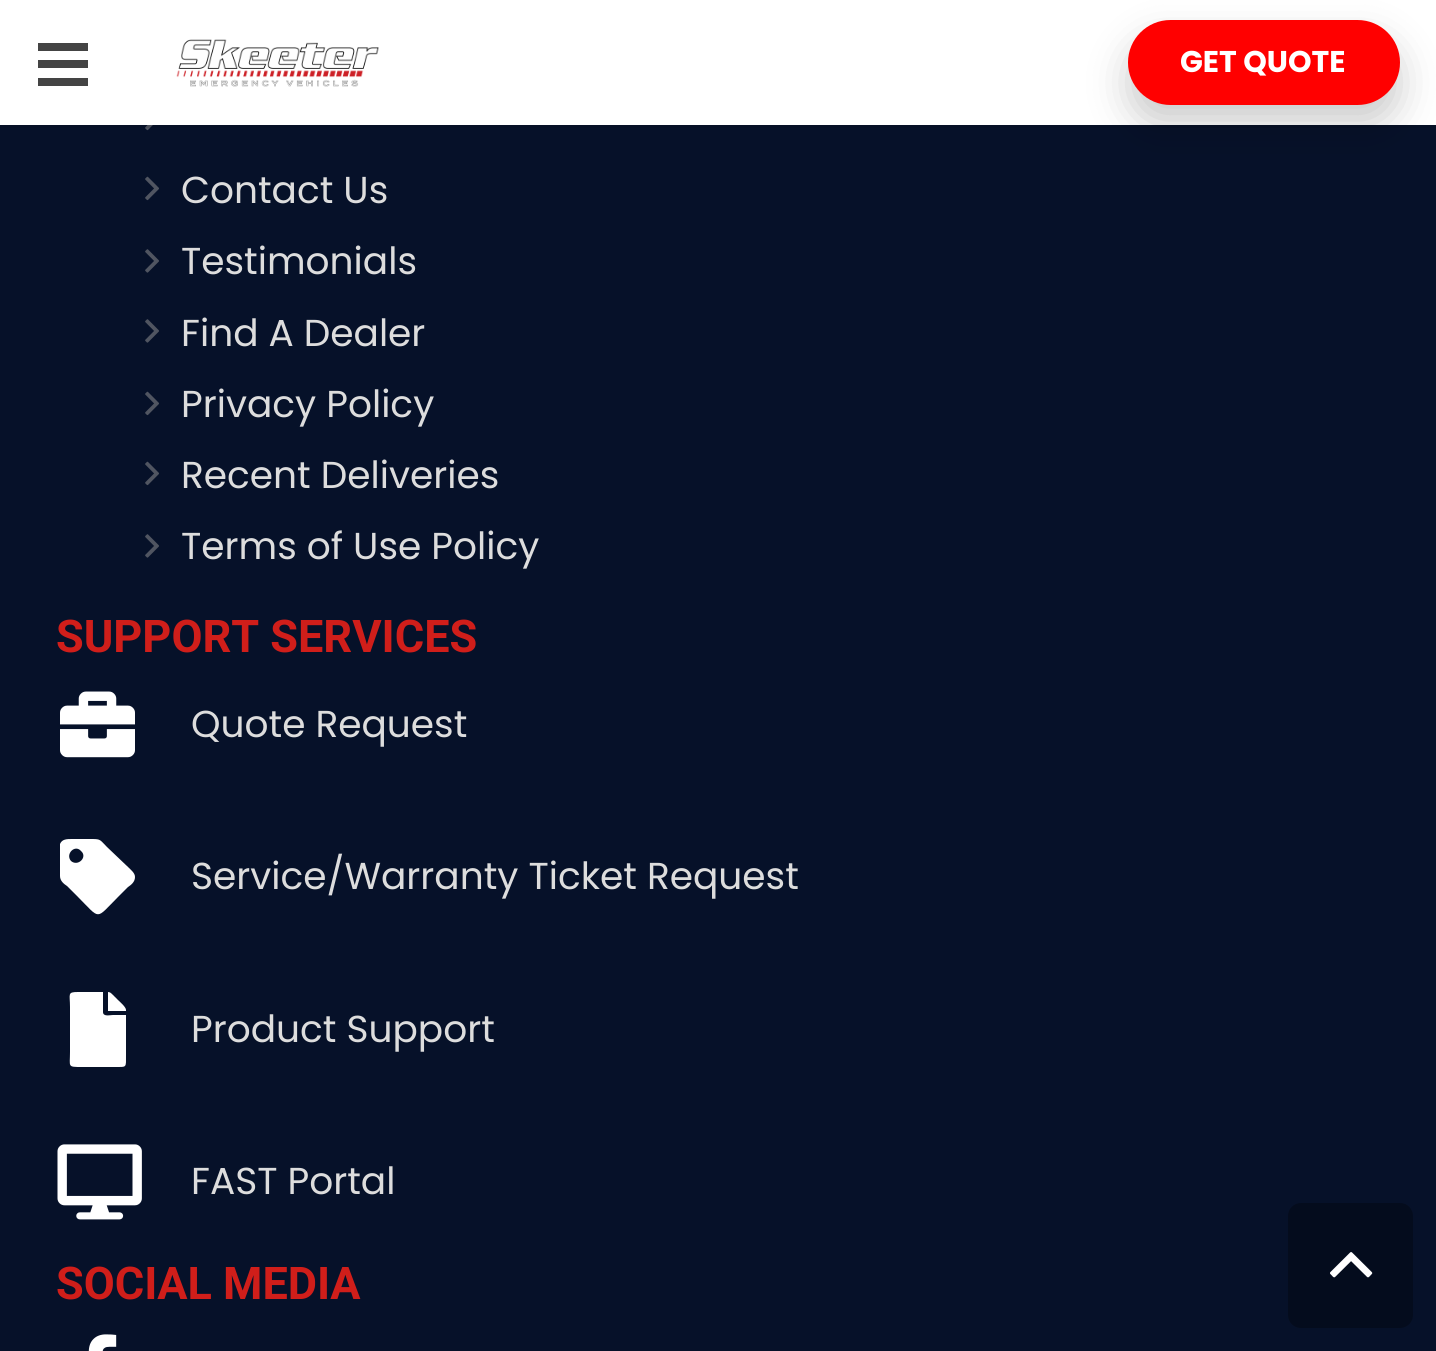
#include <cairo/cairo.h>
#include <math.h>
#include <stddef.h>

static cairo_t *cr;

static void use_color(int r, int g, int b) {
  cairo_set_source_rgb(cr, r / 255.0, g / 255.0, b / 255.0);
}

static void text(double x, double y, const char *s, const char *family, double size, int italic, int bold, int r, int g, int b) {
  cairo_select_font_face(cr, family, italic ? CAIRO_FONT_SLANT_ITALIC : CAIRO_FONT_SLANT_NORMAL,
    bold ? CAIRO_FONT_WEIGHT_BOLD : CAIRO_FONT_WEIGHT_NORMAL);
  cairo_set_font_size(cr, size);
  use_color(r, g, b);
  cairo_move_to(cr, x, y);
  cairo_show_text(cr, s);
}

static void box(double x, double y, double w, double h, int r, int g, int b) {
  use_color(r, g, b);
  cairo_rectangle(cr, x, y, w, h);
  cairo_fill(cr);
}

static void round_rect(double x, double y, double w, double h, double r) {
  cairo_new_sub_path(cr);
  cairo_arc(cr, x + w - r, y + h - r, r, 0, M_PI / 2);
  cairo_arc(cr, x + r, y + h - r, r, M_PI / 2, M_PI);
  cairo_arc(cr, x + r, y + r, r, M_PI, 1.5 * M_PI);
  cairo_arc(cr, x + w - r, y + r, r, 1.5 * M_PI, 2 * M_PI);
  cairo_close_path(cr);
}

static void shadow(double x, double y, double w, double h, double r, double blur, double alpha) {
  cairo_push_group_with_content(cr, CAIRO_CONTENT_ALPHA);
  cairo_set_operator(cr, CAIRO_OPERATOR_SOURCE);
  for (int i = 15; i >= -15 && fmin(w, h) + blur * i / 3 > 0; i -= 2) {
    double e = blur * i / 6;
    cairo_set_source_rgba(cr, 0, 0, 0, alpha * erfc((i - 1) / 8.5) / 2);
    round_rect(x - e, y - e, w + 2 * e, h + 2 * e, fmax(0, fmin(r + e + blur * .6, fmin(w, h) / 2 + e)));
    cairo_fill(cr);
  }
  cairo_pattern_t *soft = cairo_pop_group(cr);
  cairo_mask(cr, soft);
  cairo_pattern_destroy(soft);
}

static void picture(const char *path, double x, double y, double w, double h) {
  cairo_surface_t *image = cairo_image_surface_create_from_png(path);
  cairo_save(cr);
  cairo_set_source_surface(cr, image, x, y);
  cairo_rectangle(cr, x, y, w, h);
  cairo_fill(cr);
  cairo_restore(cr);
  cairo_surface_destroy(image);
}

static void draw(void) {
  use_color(6, 17, 41);
  cairo_paint(cr);
  picture("img_02.png", 145, 125, 8, 6);
  cairo_set_source_rgba(cr, 0, 0, 0, 0.08);
  cairo_new_path(cr);
  cairo_move_to(cr, 0, 125);
  cairo_line_to(cr, 0, 128);
  cairo_line_to(cr, 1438, 128);
  cairo_line_to(cr, 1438, 3);
  cairo_line_to(cr, 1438, 125);
  cairo_close_path(cr);
  cairo_fill(cr);
  box(0, 0, 1436, 125, 255, 255, 255);
  box(38, 60, 50, 8, 68, 68, 68);
  box(38, 43, 50, 8, 68, 68, 68);
  box(38, 78, 50, 8, 68, 68, 68);
  picture("img_01.png", 176, 39, 203, 48);
  use_color(0, 0, 0);
  shadow(1128, 40, 272, 85, 42.5, 19.5, 0.2);
  use_color(255, 0, 0);
  round_rect(1128, 20, 272, 85, 42.5);
  cairo_fill(cr);
  picture("img_03.png", 145, 176, 14, 25);
  picture("img_04.png", 145, 249, 14, 24);
  picture("img_04.png", 145, 319, 14, 24);
  picture("img_03.png", 145, 391, 14, 25);
  picture("img_03.png", 145, 461, 14, 25);
  picture("img_04.png", 145, 534, 14, 24);
  picture("img_05.png", 60, 691, 75, 67);
  use_color(255, 255, 255);
  cairo_new_path(cr);
  cairo_move_to(cr, 60, 876);
  cairo_line_to(cr, 60, 844);
  cairo_curve_to(cr, 62, 839, 67, 839, 72, 839);
  cairo_line_to(cr, 92, 839);
  cairo_curve_to(cr, 101, 839, 100, 840, 107, 847);
  cairo_line_to(cr, 128, 867);
  cairo_curve_to(cr, 131, 870, 135, 873, 135, 877);
  cairo_curve_to(cr, 135, 882, 131, 885, 128, 887);
  cairo_line_to(cr, 118, 897);
  cairo_curve_to(cr, 95, 920, 101, 920, 78, 897);
  cairo_line_to(cr, 67, 886);
  cairo_curve_to(cr, 64, 884, 60, 881, 60, 876);
  cairo_close_path(cr);
  cairo_move_to(cr, 81, 851);
  cairo_curve_to(cr, 75, 844, 65, 854, 71, 861);
  cairo_curve_to(cr, 78, 867, 88, 857, 81, 851);
  cairo_close_path(cr);
  cairo_fill(cr);
  cairo_new_path(cr);
  cairo_move_to(cr, 103, 1012);
  cairo_curve_to(cr, 103, 1017, 110, 1015, 113, 1015);
  cairo_line_to(cr, 126, 1015);
  cairo_line_to(cr, 126, 1055);
  cairo_curve_to(cr, 126, 1068, 127, 1067, 115, 1067);
  cairo_line_to(cr, 82, 1067);
  cairo_curve_to(cr, 67, 1067, 70, 1067, 70, 1052);
  cairo_line_to(cr, 70, 1007);
  cairo_curve_to(cr, 70, 994, 67, 992, 78, 992);
  cairo_line_to(cr, 103, 992);
  cairo_close_path(cr);
  cairo_move_to(cr, 126, 1010);
  cairo_line_to(cr, 126, 1011);
  cairo_line_to(cr, 108, 1011);
  cairo_line_to(cr, 108, 992);
  cairo_curve_to(cr, 110, 992, 111, 993, 113, 995);
  cairo_line_to(cr, 118, 1000);
  cairo_curve_to(cr, 120, 1002, 126, 1007, 126, 1010);
  cairo_close_path(cr);
  cairo_fill(cr);
  picture("img_06.png", 57, 1144, 85, 76);
  picture("img_07.png", 88, 1334, 29, 17);
  use_color(4, 12, 29);
  round_rect(1288, 1203, 125, 125, 13);
  cairo_fill(cr);
  picture("img_08.png", 1330, 1252, 43, 26);
  text(1180, 72, "GET QUOTE", "Poppins", 30, 0, 1, 255, 255, 255);
  text(181, 203, "Contact Us", "Poppins", 37.5, 0, 0, 221, 221, 221);
  text(181, 274, "Testimonials", "Poppins", 37.5, 0, 0, 221, 221, 221);
  text(181, 346, "Find A Dealer", "Poppins", 37.5, 0, 0, 221, 221, 221);
  text(181, 417, "Privacy Policy", "Poppins", 37.5, 0, 0, 221, 221, 221);
  text(181, 488, "Recent Deliveries", "Poppins", 37.5, 0, 0, 221, 221, 221);
  text(181, 559, "Terms of Use Policy", "Poppins", 37.5, 0, 0, 221, 221, 221);
  text(56, 652, "SUPPORT SERVICES", "Roboto", 45, 0, 1, 208, 30, 26);
  text(191, 737, "Quote Request", "Poppins", 37.5, 0, 0, 221, 221, 221);
  text(191, 889, "Service/Warranty Ticket Request", "Poppins", 37.5, 0, 0, 221, 221, 221);
  text(191, 1042, "Product Support", "Poppins", 37.5, 0, 0, 221, 221, 221);
  text(191, 1194, "FAST Portal", "Poppins", 37.5, 0, 0, 221, 221, 221);
  text(56, 1299, "SOCIAL MEDIA", "Roboto", 45, 0, 1, 208, 30, 26);
}

int main(void) {
  cairo_surface_t *surface = cairo_image_surface_create(CAIRO_FORMAT_RGB24, 1436, 1351);
  cr = cairo_create(surface);
  cairo_font_options_t *options = cairo_font_options_create();
  cairo_font_options_set_hint_metrics(options, CAIRO_HINT_METRICS_OFF);
  cairo_font_options_set_hint_style(options, CAIRO_HINT_STYLE_NONE);
  cairo_set_font_options(cr, options);
  cairo_set_miter_limit(cr, 4);
  draw();
  cairo_surface_write_to_png(surface, "out.png");
  cairo_font_options_destroy(options);
  cairo_destroy(cr);
  cairo_surface_destroy(surface);
  return 0;
}
